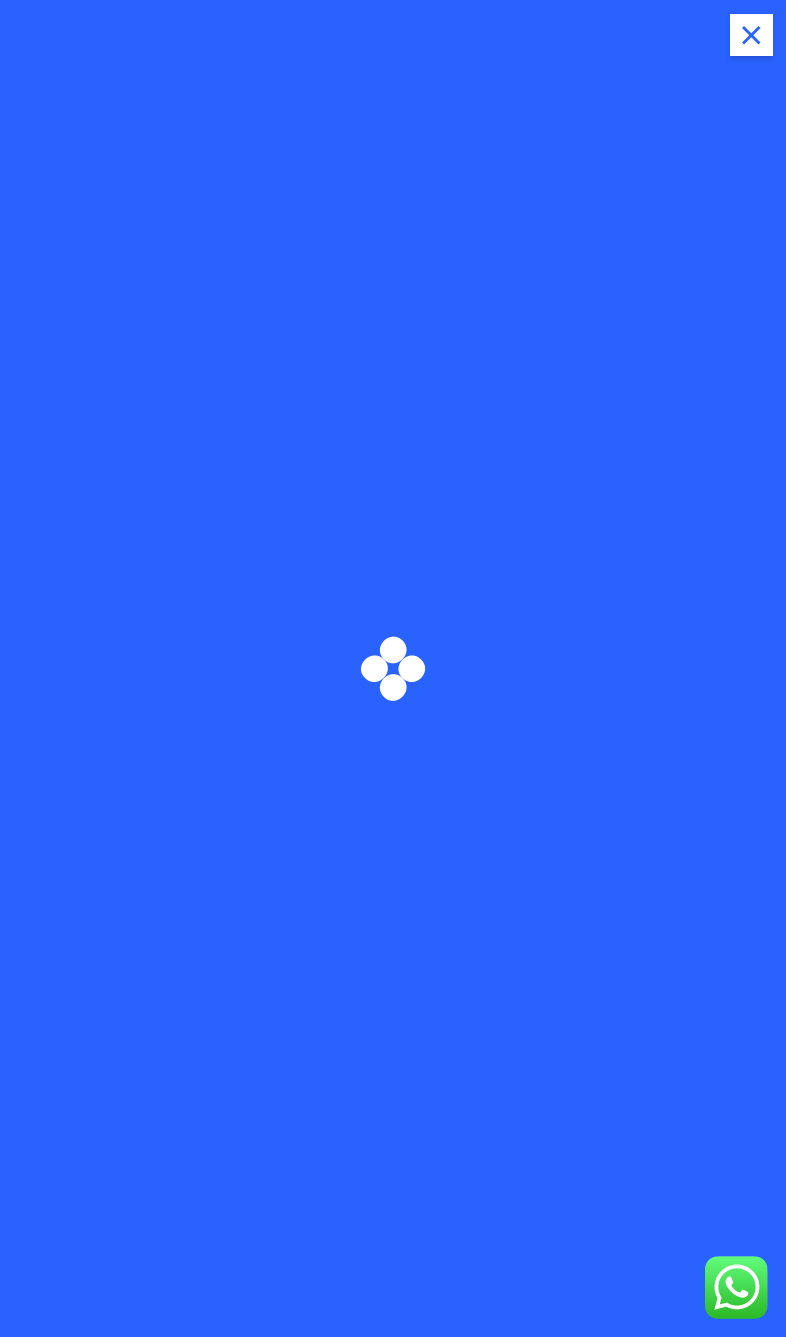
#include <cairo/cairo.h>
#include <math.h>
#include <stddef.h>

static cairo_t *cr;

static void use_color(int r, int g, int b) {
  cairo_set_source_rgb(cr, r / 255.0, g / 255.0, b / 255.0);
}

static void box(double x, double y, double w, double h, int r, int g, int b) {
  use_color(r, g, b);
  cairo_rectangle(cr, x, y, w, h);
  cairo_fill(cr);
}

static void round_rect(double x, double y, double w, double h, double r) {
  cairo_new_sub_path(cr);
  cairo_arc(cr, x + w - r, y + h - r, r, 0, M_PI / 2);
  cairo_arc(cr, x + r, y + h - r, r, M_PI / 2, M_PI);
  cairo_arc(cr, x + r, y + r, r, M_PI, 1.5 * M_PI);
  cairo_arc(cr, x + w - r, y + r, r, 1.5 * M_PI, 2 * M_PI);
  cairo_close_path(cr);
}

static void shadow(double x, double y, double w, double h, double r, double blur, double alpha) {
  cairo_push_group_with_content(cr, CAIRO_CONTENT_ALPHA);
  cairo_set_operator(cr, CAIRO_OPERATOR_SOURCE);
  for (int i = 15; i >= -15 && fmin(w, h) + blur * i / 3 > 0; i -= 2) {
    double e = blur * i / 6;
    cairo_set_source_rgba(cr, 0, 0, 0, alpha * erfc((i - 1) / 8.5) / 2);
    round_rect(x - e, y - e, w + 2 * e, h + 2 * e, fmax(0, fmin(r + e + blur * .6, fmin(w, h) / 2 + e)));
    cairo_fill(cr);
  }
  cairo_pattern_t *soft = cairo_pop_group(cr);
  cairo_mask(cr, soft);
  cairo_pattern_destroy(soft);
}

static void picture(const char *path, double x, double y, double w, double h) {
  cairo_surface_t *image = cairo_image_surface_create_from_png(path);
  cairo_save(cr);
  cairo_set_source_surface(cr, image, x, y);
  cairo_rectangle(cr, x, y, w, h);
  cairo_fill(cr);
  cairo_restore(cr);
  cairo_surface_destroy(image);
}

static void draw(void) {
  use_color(41, 98, 255);
  cairo_paint(cr);
  use_color(7, 10, 25);
  shadow(731, 19, 40, 40, 0, 3, 0.2);
  box(730, 14, 43, 42, 255, 255, 255);
  use_color(41, 98, 255);
  cairo_new_path(cr);
  cairo_move_to(cr, 742, 42.5);
  cairo_line_to(cr, 758.5, 26);
  cairo_line_to(cr, 760.5, 28);
  cairo_line_to(cr, 744, 44.5);
  cairo_close_path(cr);
  cairo_fill(cr);
  cairo_new_path(cr);
  cairo_move_to(cr, 758.5, 44.5);
  cairo_line_to(cr, 742, 28);
  cairo_line_to(cr, 744, 26);
  cairo_line_to(cr, 760.5, 42.5);
  cairo_close_path(cr);
  cairo_fill(cr);
  use_color(255, 255, 255);
  cairo_new_path(cr);
  cairo_move_to(cr, 402.5, 640.5);
  cairo_curve_to(cr, 415, 653, 396, 671.5, 384, 659.5);
  cairo_curve_to(cr, 371.5, 647, 390, 628.5, 402.5, 640.5);
  cairo_close_path(cr);
  cairo_fill(cr);
  cairo_new_path(cr);
  cairo_move_to(cr, 384, 659.5);
  cairo_curve_to(cr, 396, 671.5, 377.5, 690.5, 365, 678);
  cairo_curve_to(cr, 352.5, 666, 371.5, 647, 384, 659.5);
  cairo_close_path(cr);
  cairo_fill(cr);
  cairo_new_path(cr);
  cairo_move_to(cr, 421, 659.5);
  cairo_curve_to(cr, 433.5, 671.5, 415, 690.5, 402.5, 678);
  cairo_curve_to(cr, 390, 666, 409, 647, 421, 659.5);
  cairo_close_path(cr);
  cairo_fill(cr);
  cairo_new_path(cr);
  cairo_move_to(cr, 402.5, 678);
  cairo_curve_to(cr, 415, 690.5, 396, 709, 384, 697);
  cairo_curve_to(cr, 371.5, 684.5, 390, 666, 402.5, 678);
  cairo_close_path(cr);
  cairo_fill(cr);
  picture("img_01.png", 705, 1256, 63, 63);
}

int main(void) {
  cairo_surface_t *surface = cairo_image_surface_create(CAIRO_FORMAT_RGB24, 786, 1337);
  cr = cairo_create(surface);
  cairo_font_options_t *options = cairo_font_options_create();
  cairo_font_options_set_hint_metrics(options, CAIRO_HINT_METRICS_OFF);
  cairo_font_options_set_hint_style(options, CAIRO_HINT_STYLE_NONE);
  cairo_set_font_options(cr, options);
  cairo_set_miter_limit(cr, 4);
  draw();
  cairo_surface_write_to_png(surface, "out.png");
  cairo_font_options_destroy(options);
  cairo_destroy(cr);
  cairo_surface_destroy(surface);
  return 0;
}
